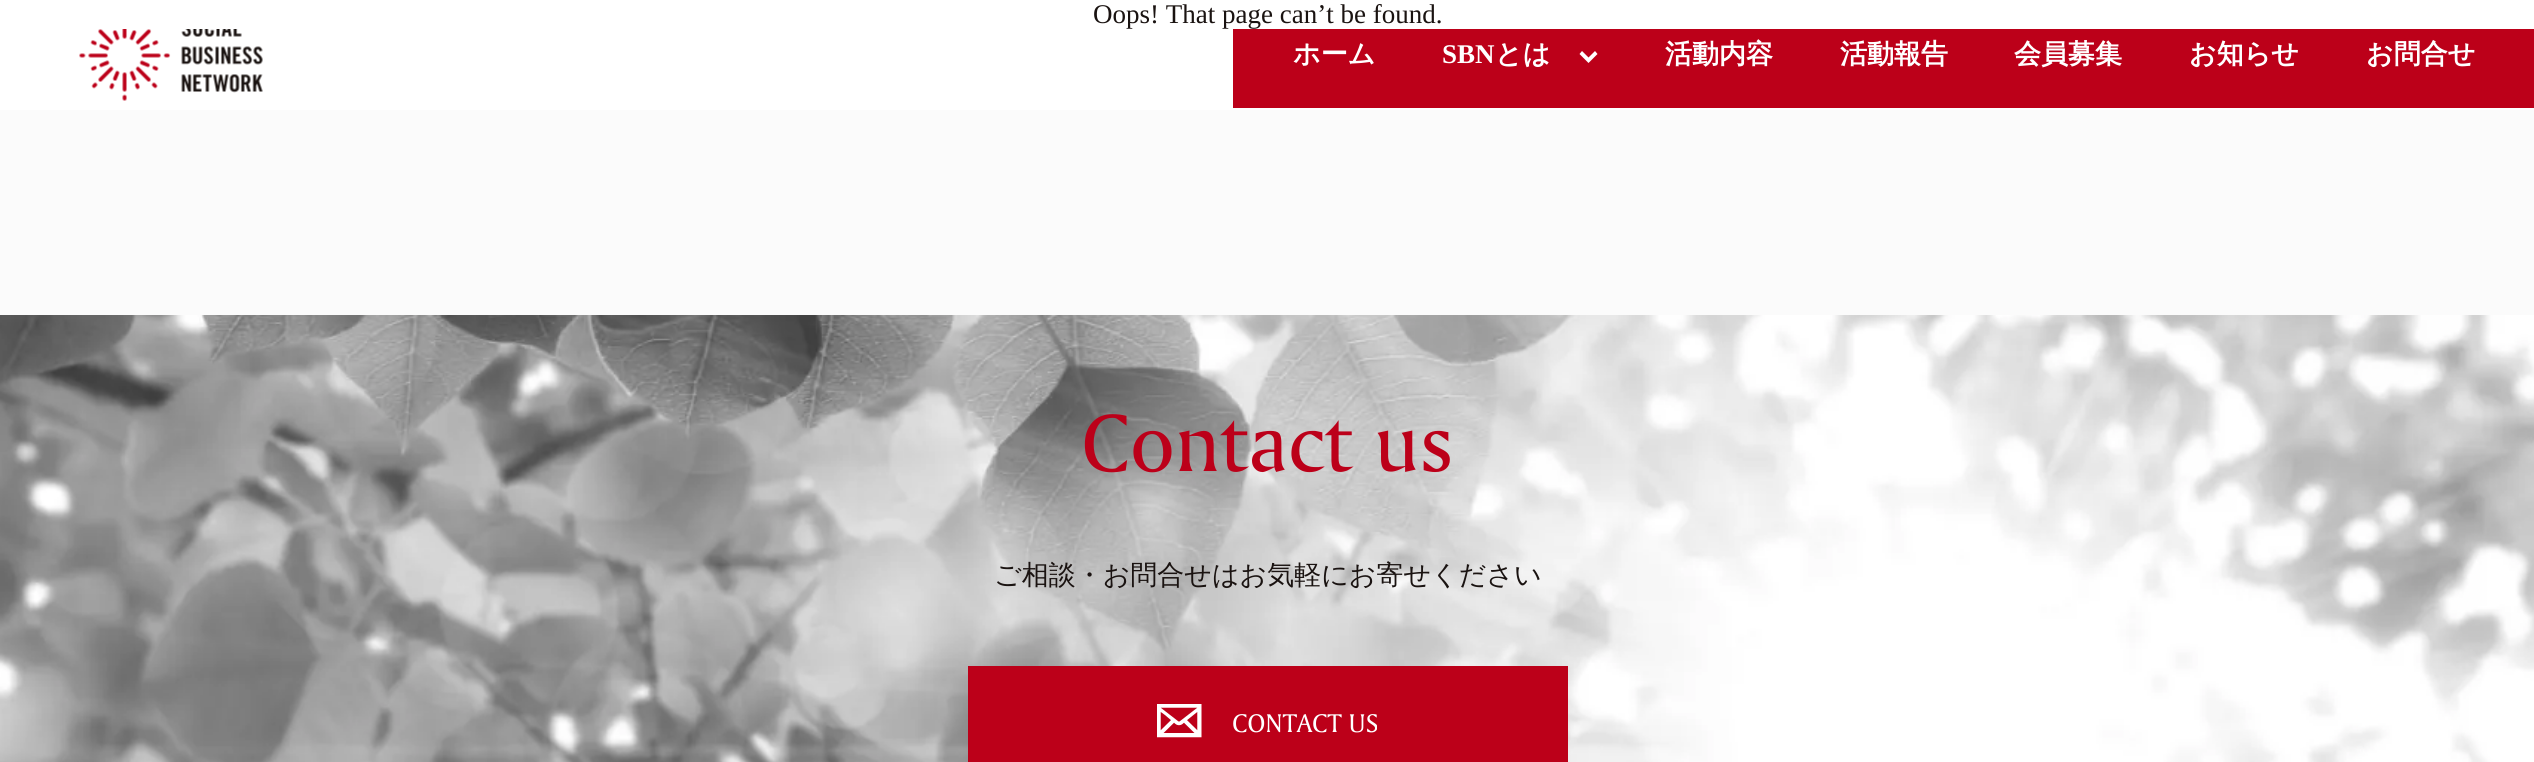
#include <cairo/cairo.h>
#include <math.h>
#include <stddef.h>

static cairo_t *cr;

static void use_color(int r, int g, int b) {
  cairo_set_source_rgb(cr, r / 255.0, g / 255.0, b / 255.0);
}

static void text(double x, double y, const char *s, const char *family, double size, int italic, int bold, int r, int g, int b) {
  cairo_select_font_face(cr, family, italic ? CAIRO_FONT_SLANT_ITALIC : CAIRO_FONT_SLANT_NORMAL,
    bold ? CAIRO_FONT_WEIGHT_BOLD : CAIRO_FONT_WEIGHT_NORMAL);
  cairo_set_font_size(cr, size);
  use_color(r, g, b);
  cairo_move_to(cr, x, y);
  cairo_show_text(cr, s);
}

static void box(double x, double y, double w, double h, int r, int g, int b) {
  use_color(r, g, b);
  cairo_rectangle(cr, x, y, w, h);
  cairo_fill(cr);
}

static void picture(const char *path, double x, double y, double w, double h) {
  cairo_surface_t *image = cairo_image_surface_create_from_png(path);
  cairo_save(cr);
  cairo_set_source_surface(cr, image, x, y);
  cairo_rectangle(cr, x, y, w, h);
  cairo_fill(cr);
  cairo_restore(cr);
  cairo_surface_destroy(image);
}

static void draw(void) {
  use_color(251, 251, 251);
  cairo_paint(cr);
  box(0, 0, 2534, 110, 255, 255, 255);
  picture("img_01.png", 79, 29, 184, 72);
  box(1233, 29, 1301, 79, 188, 0, 25);
  use_color(255, 255, 255);
  cairo_new_path(cr);
  cairo_move_to(cr, 1597.5, 54);
  cairo_line_to(cr, 1595, 51);
  cairo_line_to(cr, 1588.5, 57.5);
  cairo_line_to(cr, 1582, 51);
  cairo_line_to(cr, 1579.5, 54);
  cairo_line_to(cr, 1588.5, 63);
  cairo_close_path(cr);
  cairo_fill(cr);
  picture("img_02.png", 0, 315, 2534, 447);
  box(968, 666, 600, 96, 188, 0, 25);
  picture("img_03.png", 1157, 704, 45, 34);
  text(1093, 23, "Oops! That page can’t be found.", "Liberation Serif", 27, 0, 0, 26, 19, 17);
  text(1293, 63, "ホーム", "WenQuanYi Zen Hei", 27, 0, 1, 255, 255, 255);
  text(1442, 63, "SBN", "Liberation Serif", 27, 0, 1, 255, 255, 255);
  text(1495, 63, "とは", "WenQuanYi Zen Hei", 27, 0, 1, 255, 255, 255);
  text(1665, 63, "活動内容", "WenQuanYi Zen Hei", 27, 0, 1, 255, 255, 255);
  text(1840, 63, "活動報告", "WenQuanYi Zen Hei", 27, 0, 1, 255, 255, 255);
  text(2014, 63, "会員募集", "WenQuanYi Zen Hei", 27, 0, 1, 255, 255, 255);
  text(2189, 63, "お知らせ", "WenQuanYi Zen Hei", 27, 0, 1, 255, 255, 255);
  text(2366, 63, "お問合せ", "WenQuanYi Zen Hei", 27, 0, 1, 255, 255, 255);
  text(1081, 471, "Contact us", "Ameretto", 85.5, 0, 0, 188, 0, 25);
  text(994, 584, "ご相談・お問合せはお気軽にお寄せください", "WenQuanYi Zen Hei Medium", 27, 0, 0, 26, 19, 17);
  text(1232, 732, "CONTACT US", "Ameretto", 27, 0, 0, 255, 255, 255);
}

int main(void) {
  cairo_surface_t *surface = cairo_image_surface_create(CAIRO_FORMAT_RGB24, 2534, 762);
  cr = cairo_create(surface);
  cairo_font_options_t *options = cairo_font_options_create();
  cairo_font_options_set_hint_metrics(options, CAIRO_HINT_METRICS_OFF);
  cairo_font_options_set_hint_style(options, CAIRO_HINT_STYLE_NONE);
  cairo_set_font_options(cr, options);
  cairo_set_miter_limit(cr, 4);
  draw();
  cairo_surface_write_to_png(surface, "out.png");
  cairo_font_options_destroy(options);
  cairo_destroy(cr);
  cairo_surface_destroy(surface);
  return 0;
}
